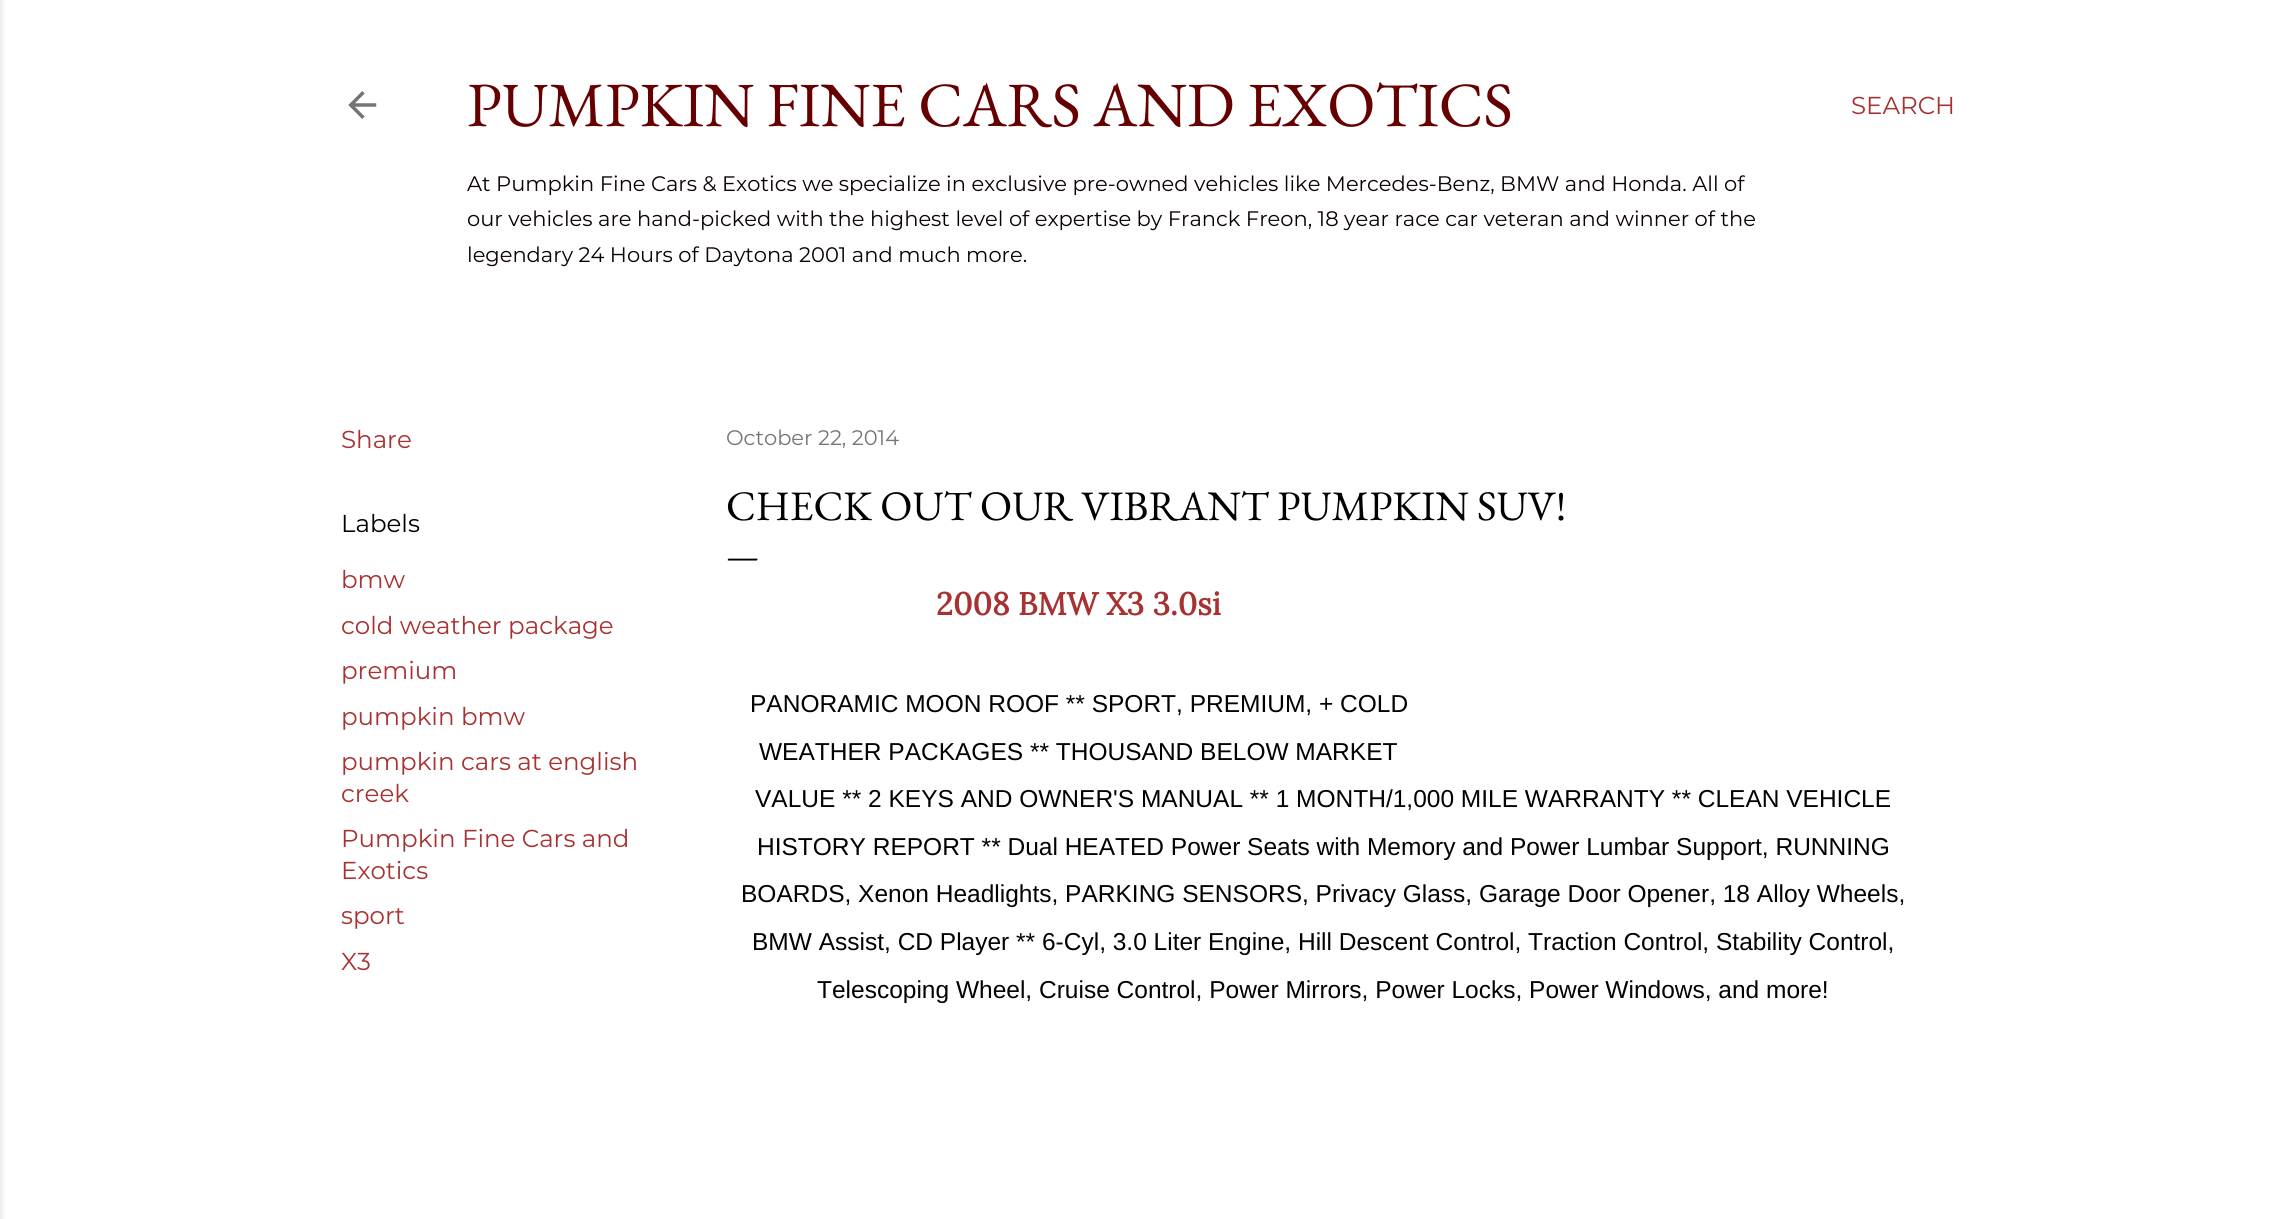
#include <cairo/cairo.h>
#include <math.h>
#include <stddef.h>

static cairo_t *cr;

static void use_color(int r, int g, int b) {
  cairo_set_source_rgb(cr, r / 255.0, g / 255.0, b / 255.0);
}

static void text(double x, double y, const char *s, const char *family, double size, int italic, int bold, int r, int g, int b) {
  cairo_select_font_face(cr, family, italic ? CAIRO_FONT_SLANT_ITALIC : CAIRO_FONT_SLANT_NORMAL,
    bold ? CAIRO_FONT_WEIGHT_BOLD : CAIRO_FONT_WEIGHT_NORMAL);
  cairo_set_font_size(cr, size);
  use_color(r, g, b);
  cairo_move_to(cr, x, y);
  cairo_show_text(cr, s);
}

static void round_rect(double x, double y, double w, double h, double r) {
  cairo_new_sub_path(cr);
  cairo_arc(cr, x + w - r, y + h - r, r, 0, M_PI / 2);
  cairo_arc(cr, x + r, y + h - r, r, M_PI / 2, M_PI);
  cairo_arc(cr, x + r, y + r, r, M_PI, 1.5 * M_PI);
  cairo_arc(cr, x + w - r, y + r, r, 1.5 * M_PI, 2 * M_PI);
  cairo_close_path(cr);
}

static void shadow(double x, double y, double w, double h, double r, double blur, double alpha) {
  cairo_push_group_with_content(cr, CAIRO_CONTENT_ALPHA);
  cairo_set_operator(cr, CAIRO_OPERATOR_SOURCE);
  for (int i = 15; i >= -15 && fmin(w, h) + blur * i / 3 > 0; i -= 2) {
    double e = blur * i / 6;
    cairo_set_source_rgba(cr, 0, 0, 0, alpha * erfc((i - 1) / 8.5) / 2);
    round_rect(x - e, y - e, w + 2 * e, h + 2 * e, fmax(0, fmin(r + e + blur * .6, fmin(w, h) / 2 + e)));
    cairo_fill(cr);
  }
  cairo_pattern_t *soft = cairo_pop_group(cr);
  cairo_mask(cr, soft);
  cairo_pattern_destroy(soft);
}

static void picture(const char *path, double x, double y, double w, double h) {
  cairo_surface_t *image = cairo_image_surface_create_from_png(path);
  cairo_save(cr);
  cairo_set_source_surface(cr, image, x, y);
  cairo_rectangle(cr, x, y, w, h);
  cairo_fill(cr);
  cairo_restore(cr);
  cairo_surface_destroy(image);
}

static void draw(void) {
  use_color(255, 255, 255);
  cairo_paint(cr);
  use_color(0, 0, 0);
  shadow(-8, 0, 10, 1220, 0, 2.5, 0.1);
  picture("img_01.png", 348, 91, 29, 28);
  text(467, 126, "PUMPKIN FINE CARS AND EXOTICS", "EB Garamond", 63, 0, 0, 102, 0, 0);
  text(467, 191, "At Pumpkin Fine Cars & Exotics we specialize in exclusive pre-owned vehicles like Mercedes-Benz, BMW and Honda. All of", "Montserrat", 21, 0, 0, 10, 0, 0);
  text(467, 226, "our vehicles are hand-picked with the highest level of expertise by Franck Freon, 18 year race car veteran and winner of the", "Montserrat", 21, 0, 0, 10, 0, 0);
  text(467, 262, "legendary 24 Hours of Daytona 2001 and much more.", "Montserrat", 21, 0, 0, 10, 0, 0);
  text(1851, 114, "SEARCH", "Montserrat", 24.5, 0, 0, 168, 49, 49);
  text(341, 448, "Share", "Montserrat", 24.5, 0, 0, 168, 49, 49);
  text(341, 532, "Labels", "Montserrat", 24.5, 0, 0, 0, 0, 0);
  text(341, 588, "bmw", "Montserrat", 24.5, 0, 0, 168, 49, 49);
  text(341, 634, "cold weather package", "Montserrat", 24.5, 0, 0, 168, 49, 49);
  text(341, 679, "premium", "Montserrat", 24.5, 0, 0, 168, 49, 49);
  text(341, 725, "pumpkin bmw", "Montserrat", 24.5, 0, 0, 168, 49, 49);
  text(341, 770, "pumpkin cars at english", "Montserrat", 24.5, 0, 0, 168, 49, 49);
  text(341, 802, "creek", "Montserrat", 24.5, 0, 0, 168, 49, 49);
  text(341, 847, "Pumpkin Fine Cars and", "Montserrat", 24.5, 0, 0, 168, 49, 49);
  text(341, 879, "Exotics", "Montserrat", 24.5, 0, 0, 168, 49, 49);
  text(341, 924, "sport", "Montserrat", 24.5, 0, 0, 168, 49, 49);
  text(341, 970, "X3", "Montserrat", 24.5, 0, 0, 168, 49, 49);
  text(726, 445, "October 22, 2014", "Montserrat", 21, 0, 0, 117, 117, 117);
  text(726, 520, "CHECK OUT OUR VIBRANT PUMPKIN SUV!", "EB Garamond", 42, 0, 0, 0, 0, 0);
  text(726, 567, "—", "EB Garamond", 35, 0, 0, 0, 0, 0);
  text(936, 615, "2008 BMW X3 3.0si", "Lora", 31.5, 0, 1, 168, 49, 49);
  text(750, 712, "PANORAMIC MOON ROOF ** SPORT, PREMIUM, + COLD", "Liberation Sans", 24.5, 0, 0, 0, 0, 0);
  text(759, 760, "WEATHER PACKAGES ** THOUSAND BELOW MARKET", "Liberation Sans", 24.5, 0, 0, 0, 0, 0);
  text(755, 807, "VALUE ** 2 KEYS AND OWNER'S MANUAL ** 1 MONTH/1,000 MILE WARRANTY ** CLEAN VEHICLE", "Liberation Sans", 24.5, 0, 0, 0, 0, 0);
  text(757, 855, "HISTORY REPORT ** Dual HEATED Power Seats with Memory and Power Lumbar Support, RUNNING", "Liberation Sans", 24.5, 0, 0, 0, 0, 0);
  text(741, 902, "BOARDS, Xenon Headlights, PARKING SENSORS, Privacy Glass, Garage Door Opener, 18 Alloy Wheels,", "Liberation Sans", 24.5, 0, 0, 0, 0, 0);
  text(752, 950, "BMW Assist, CD Player ** 6-Cyl, 3.0 Liter Engine, Hill Descent Control, Traction Control, Stability Control,", "Liberation Sans", 24.5, 0, 0, 0, 0, 0);
  text(817, 998, "Telescoping Wheel, Cruise Control, Power Mirrors, Power Locks, Power Windows, and more!", "Liberation Sans", 24.5, 0, 0, 0, 0, 0);
}

int main(void) {
  cairo_surface_t *surface = cairo_image_surface_create(CAIRO_FORMAT_RGB24, 2296, 1219);
  cr = cairo_create(surface);
  cairo_font_options_t *options = cairo_font_options_create();
  cairo_font_options_set_hint_metrics(options, CAIRO_HINT_METRICS_OFF);
  cairo_font_options_set_hint_style(options, CAIRO_HINT_STYLE_NONE);
  cairo_set_font_options(cr, options);
  cairo_set_miter_limit(cr, 4);
  draw();
  cairo_surface_write_to_png(surface, "out.png");
  cairo_font_options_destroy(options);
  cairo_destroy(cr);
  cairo_surface_destroy(surface);
  return 0;
}
